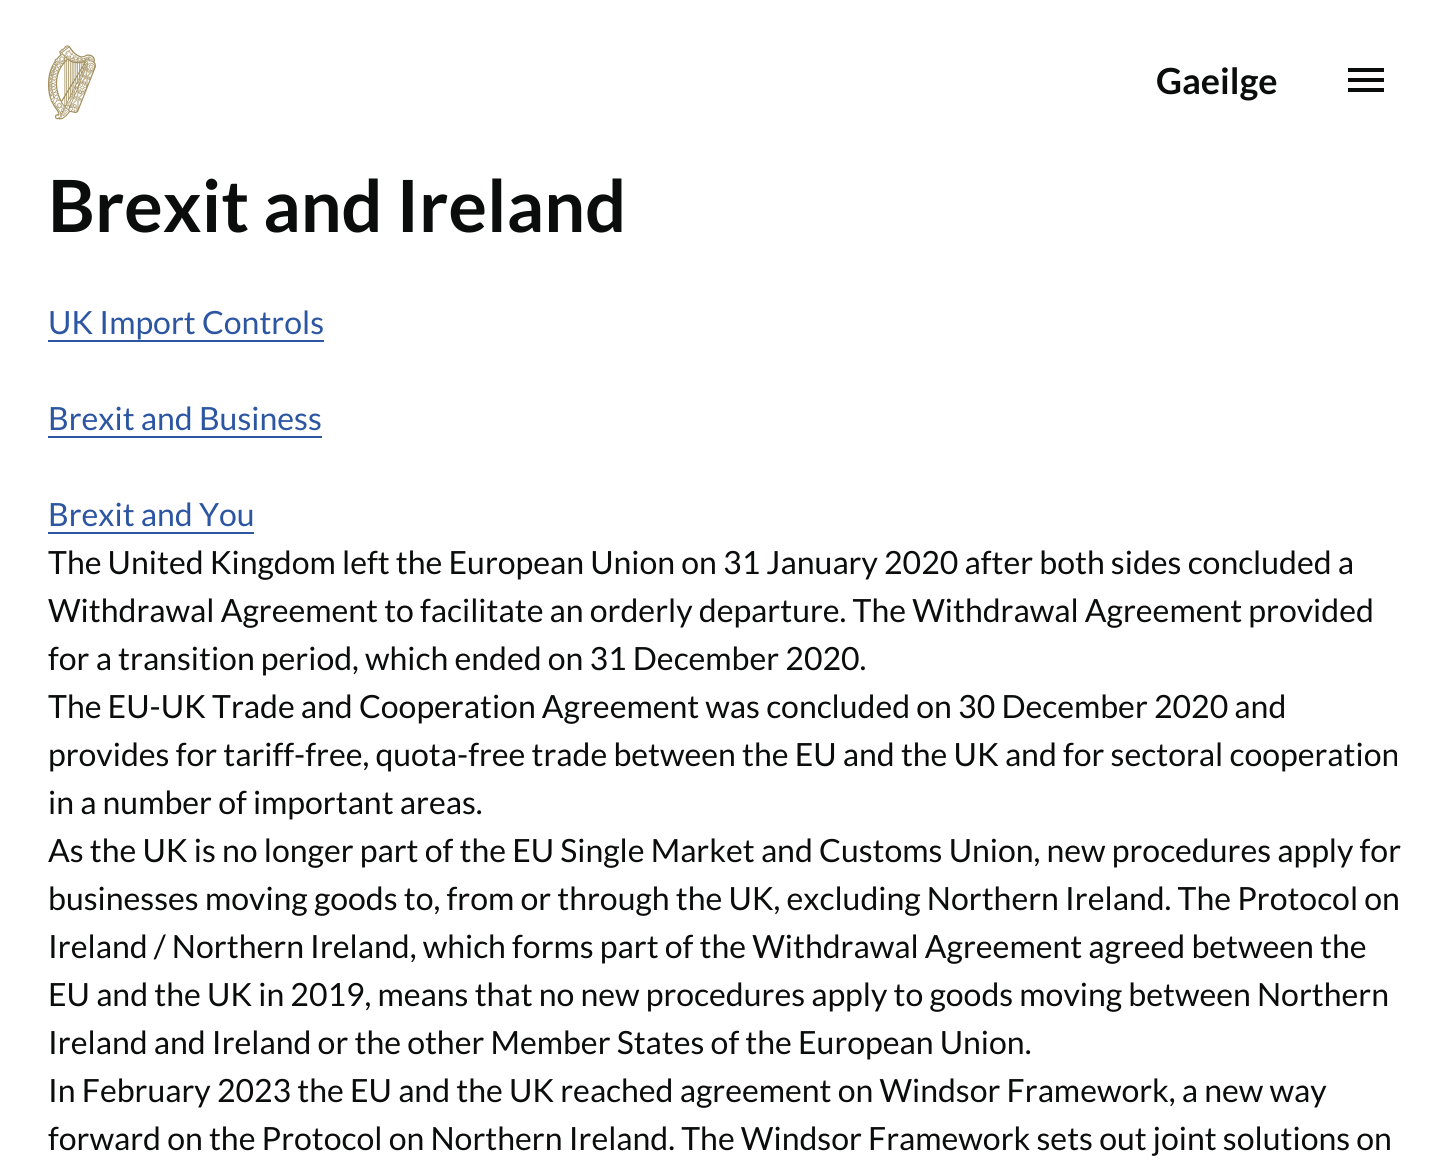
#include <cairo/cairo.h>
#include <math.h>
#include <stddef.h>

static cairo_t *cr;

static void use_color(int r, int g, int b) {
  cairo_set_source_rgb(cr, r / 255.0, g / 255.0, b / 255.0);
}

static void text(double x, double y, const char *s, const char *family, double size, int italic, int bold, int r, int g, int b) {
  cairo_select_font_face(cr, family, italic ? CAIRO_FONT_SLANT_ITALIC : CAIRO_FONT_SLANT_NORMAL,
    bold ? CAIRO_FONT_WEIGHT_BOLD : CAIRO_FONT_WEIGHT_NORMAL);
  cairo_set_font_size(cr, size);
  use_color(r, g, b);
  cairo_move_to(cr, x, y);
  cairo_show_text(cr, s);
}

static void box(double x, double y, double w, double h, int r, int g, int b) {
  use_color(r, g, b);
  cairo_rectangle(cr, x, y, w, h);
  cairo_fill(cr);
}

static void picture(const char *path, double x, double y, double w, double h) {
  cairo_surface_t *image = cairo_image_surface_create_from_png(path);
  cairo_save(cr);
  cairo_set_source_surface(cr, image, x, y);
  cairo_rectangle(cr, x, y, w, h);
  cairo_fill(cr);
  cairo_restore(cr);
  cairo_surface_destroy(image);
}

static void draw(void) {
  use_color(255, 255, 255);
  cairo_paint(cr);
  picture("img_01.png", 48, 45, 48, 75);
  use_color(11, 12, 12);
  cairo_new_path(cr);
  cairo_move_to(cr, 1348, 92);
  cairo_line_to(cr, 1348, 88);
  cairo_line_to(cr, 1384, 88);
  cairo_line_to(cr, 1384, 92);
  cairo_close_path(cr);
  cairo_move_to(cr, 1348, 82);
  cairo_line_to(cr, 1348, 78);
  cairo_line_to(cr, 1384, 78);
  cairo_line_to(cr, 1384, 82);
  cairo_close_path(cr);
  cairo_move_to(cr, 1348, 72);
  cairo_line_to(cr, 1348, 68);
  cairo_line_to(cr, 1384, 68);
  cairo_line_to(cr, 1384, 72);
  cairo_close_path(cr);
  cairo_fill(cr);
  box(48, 340, 276, 2, 44, 85, 162);
  box(48, 436, 274, 2, 44, 85, 162);
  box(48, 532, 206, 2, 44, 85, 162);
  text(1156, 94, "Gaeilge", "Lato", 36, 0, 1, 11, 12, 12);
  text(48, 232, "Brexit and Ireland", "Lato", 72, 0, 1, 11, 12, 12);
  text(48, 334, "UK Import Controls", "Lato", 32, 0, 0, 44, 85, 162);
  text(48, 430, "Brexit and Business", "Lato", 32, 0, 0, 44, 85, 162);
  text(48, 526, "Brexit and You", "Lato", 32, 0, 0, 44, 85, 162);
  text(48, 574, "The United Kingdom left the European Union on 31 January 2020 after both sides concluded a", "Lato", 32, 0, 0, 11, 12, 12);
  text(48, 622, "Withdrawal Agreement to facilitate an orderly departure. The Withdrawal Agreement provided", "Lato", 32, 0, 0, 11, 12, 12);
  text(48, 670, "for a transition period, which ended on 31 December 2020.", "Lato", 32, 0, 0, 11, 12, 12);
  text(48, 718, "The EU-UK Trade and Cooperation Agreement was concluded on 30 December 2020 and", "Lato", 32, 0, 0, 11, 12, 12);
  text(48, 766, "provides for tariff-free, quota-free trade between the EU and the UK and for sectoral cooperation", "Lato", 32, 0, 0, 11, 12, 12);
  text(48, 814, "in a number of important areas.", "Lato", 32, 0, 0, 11, 12, 12);
  text(48, 862, "As the UK is no longer part of the EU Single Market and Customs Union, new procedures apply for", "Lato", 32, 0, 0, 11, 12, 12);
  text(48, 910, "businesses moving goods to, from or through the UK, excluding Northern Ireland. The Protocol on", "Lato", 32, 0, 0, 11, 12, 12);
  text(48, 958, "Ireland / Northern Ireland, which forms part of the Withdrawal Agreement agreed between the", "Lato", 32, 0, 0, 11, 12, 12);
  text(48, 1006, "EU and the UK in 2019, means that no new procedures apply to goods moving between Northern", "Lato", 32, 0, 0, 11, 12, 12);
  text(48, 1054, "Ireland and Ireland or the other Member States of the European Union.", "Lato", 32, 0, 0, 11, 12, 12);
  text(48, 1102, "In February 2023 the EU and the UK reached agreement on Windsor Framework, a new way", "Lato", 32, 0, 0, 11, 12, 12);
  text(48, 1150, "forward on the Protocol on Northern Ireland. The Windsor Framework sets out joint solutions on", "Lato", 32, 0, 0, 11, 12, 12);
}

int main(void) {
  cairo_surface_t *surface = cairo_image_surface_create(CAIRO_FORMAT_RGB24, 1454, 1169);
  cr = cairo_create(surface);
  cairo_font_options_t *options = cairo_font_options_create();
  cairo_font_options_set_hint_metrics(options, CAIRO_HINT_METRICS_OFF);
  cairo_font_options_set_hint_style(options, CAIRO_HINT_STYLE_NONE);
  cairo_set_font_options(cr, options);
  cairo_set_miter_limit(cr, 4);
  draw();
  cairo_surface_write_to_png(surface, "out.png");
  cairo_font_options_destroy(options);
  cairo_destroy(cr);
  cairo_surface_destroy(surface);
  return 0;
}
